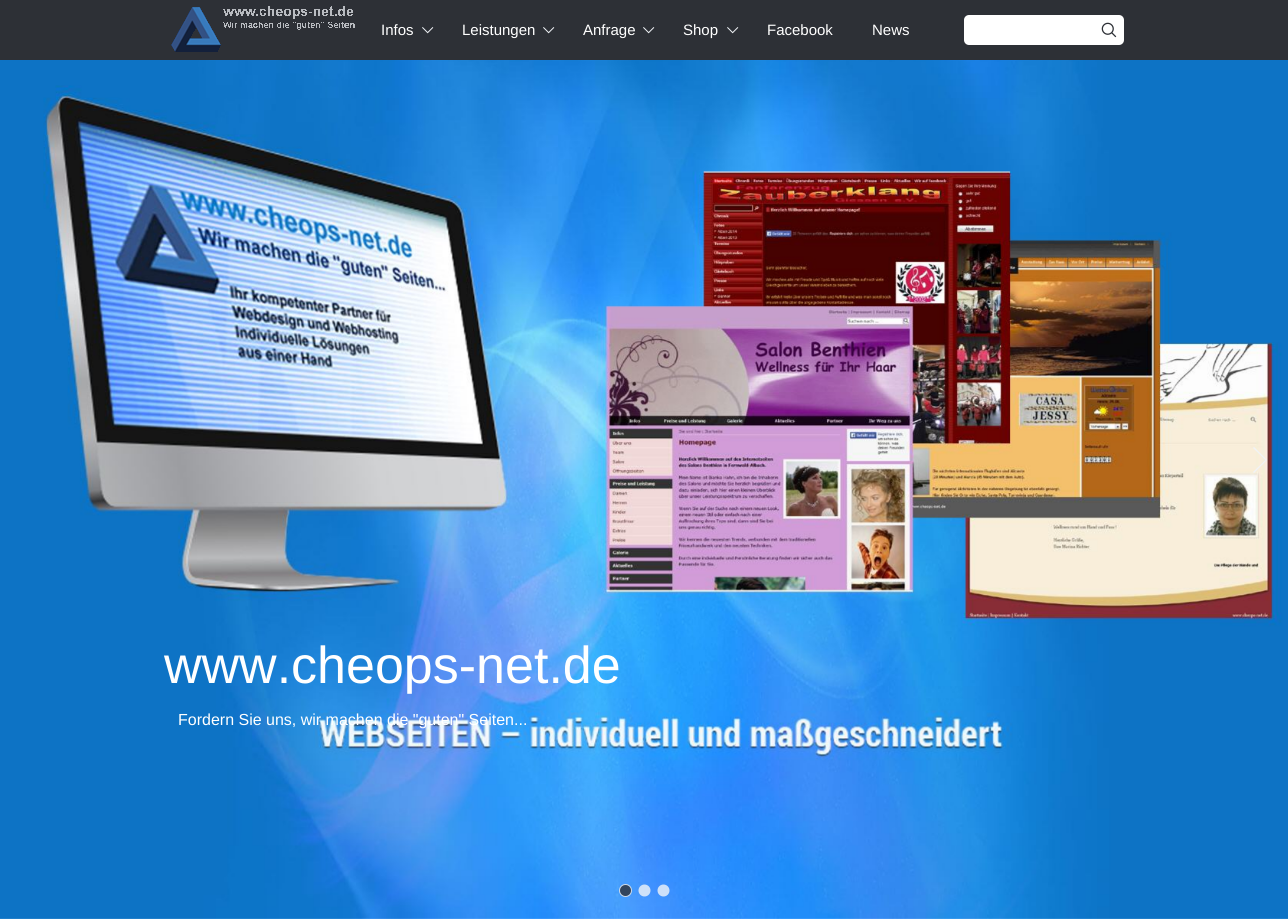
#include <cairo/cairo.h>
#include <math.h>
#include <stddef.h>

static cairo_t *cr;

static void use_color(int r, int g, int b) {
  cairo_set_source_rgb(cr, r / 255.0, g / 255.0, b / 255.0);
}

static void text(double x, double y, const char *s, const char *family, double size, int italic, int bold, int r, int g, int b) {
  cairo_select_font_face(cr, family, italic ? CAIRO_FONT_SLANT_ITALIC : CAIRO_FONT_SLANT_NORMAL,
    bold ? CAIRO_FONT_WEIGHT_BOLD : CAIRO_FONT_WEIGHT_NORMAL);
  cairo_set_font_size(cr, size);
  use_color(r, g, b);
  cairo_move_to(cr, x, y);
  cairo_show_text(cr, s);
}

static void box(double x, double y, double w, double h, int r, int g, int b) {
  use_color(r, g, b);
  cairo_rectangle(cr, x, y, w, h);
  cairo_fill(cr);
}

static void round_rect(double x, double y, double w, double h, double r) {
  cairo_new_sub_path(cr);
  cairo_arc(cr, x + w - r, y + h - r, r, 0, M_PI / 2);
  cairo_arc(cr, x + r, y + h - r, r, M_PI / 2, M_PI);
  cairo_arc(cr, x + r, y + r, r, M_PI, 1.5 * M_PI);
  cairo_arc(cr, x + w - r, y + r, r, 1.5 * M_PI, 2 * M_PI);
  cairo_close_path(cr);
}

static void picture(const char *path, double x, double y, double w, double h) {
  cairo_surface_t *image = cairo_image_surface_create_from_png(path);
  cairo_save(cr);
  cairo_set_source_surface(cr, image, x, y);
  cairo_rectangle(cr, x, y, w, h);
  cairo_fill(cr);
  cairo_restore(cr);
  cairo_surface_destroy(image);
}

static void draw(void) {
  use_color(255, 255, 255);
  cairo_paint(cr);
  box(0, 0, 1288, 60, 45, 48, 54);
  picture("img_01.png", 171, 6, 184, 46);
  picture("img_02.png", 422, 27, 12, 7);
  picture("img_02.png", 543, 27, 12, 7);
  picture("img_02.png", 643, 27, 12, 7);
  picture("img_02.png", 727, 27, 12, 7);
  use_color(255, 255, 255);
  round_rect(964, 15, 160, 30, 5);
  cairo_fill(cr);
  picture("img_03.png", 1101, 22, 16, 16);
  picture("img_04.png", 0, 60, 1288, 859);
  use_color(240, 243, 247);
  cairo_new_path(cr);
  cairo_move_to(cr, 1267, 460);
  cairo_line_to(cr, 1254, 473);
  cairo_line_to(cr, 1253, 472);
  cairo_line_to(cr, 1265.5, 460);
  cairo_line_to(cr, 1253, 448);
  cairo_line_to(cr, 1254, 447);
  cairo_close_path(cr);
  cairo_fill(cr);
  cairo_set_source_rgba(cr, 0.176, 0.188, 0.212, 0.8);
  cairo_arc(cr, 625.5, 890.5, 6, 0, 2 * M_PI);
  cairo_fill_preserve(cr);
  cairo_set_source_rgba(cr, 0.941, 0.953, 0.969, 0.8);
  cairo_set_line_width(cr, 1);
  cairo_stroke(cr);
  cairo_arc(cr, 644.5, 890.5, 6, 0, 2 * M_PI);
  cairo_fill(cr);
  cairo_arc(cr, 663.5, 890.5, 6, 0, 2 * M_PI);
  cairo_fill(cr);
  text(381, 35, "Infos", "Liberation Sans", 15, 0, 0, 255, 255, 255);
  text(462, 35, "Leistungen", "Liberation Sans", 15, 0, 0, 255, 255, 255);
  text(583, 35, "Anfrage", "Liberation Sans", 15, 0, 0, 255, 255, 255);
  text(683, 35, "Shop", "Liberation Sans", 15, 0, 0, 255, 255, 255);
  text(767, 35, "Facebook", "Liberation Sans", 15, 0, 0, 255, 255, 255);
  text(872, 35, "News", "Liberation Sans", 15, 0, 0, 255, 255, 255);
  text(164, 683, "www.cheops-net.de", "Liberation Sans", 52, 0, 0, 255, 255, 255);
  text(178, 725, "Fordern Sie uns, wir machen die \"guten\" Seiten...", "Liberation Sans", 16, 0, 0, 255, 255, 255);
}

int main(void) {
  cairo_surface_t *surface = cairo_image_surface_create(CAIRO_FORMAT_RGB24, 1288, 919);
  cr = cairo_create(surface);
  cairo_font_options_t *options = cairo_font_options_create();
  cairo_font_options_set_hint_metrics(options, CAIRO_HINT_METRICS_OFF);
  cairo_font_options_set_hint_style(options, CAIRO_HINT_STYLE_NONE);
  cairo_set_font_options(cr, options);
  cairo_set_miter_limit(cr, 4);
  draw();
  cairo_surface_write_to_png(surface, "out.png");
  cairo_font_options_destroy(options);
  cairo_destroy(cr);
  cairo_surface_destroy(surface);
  return 0;
}
